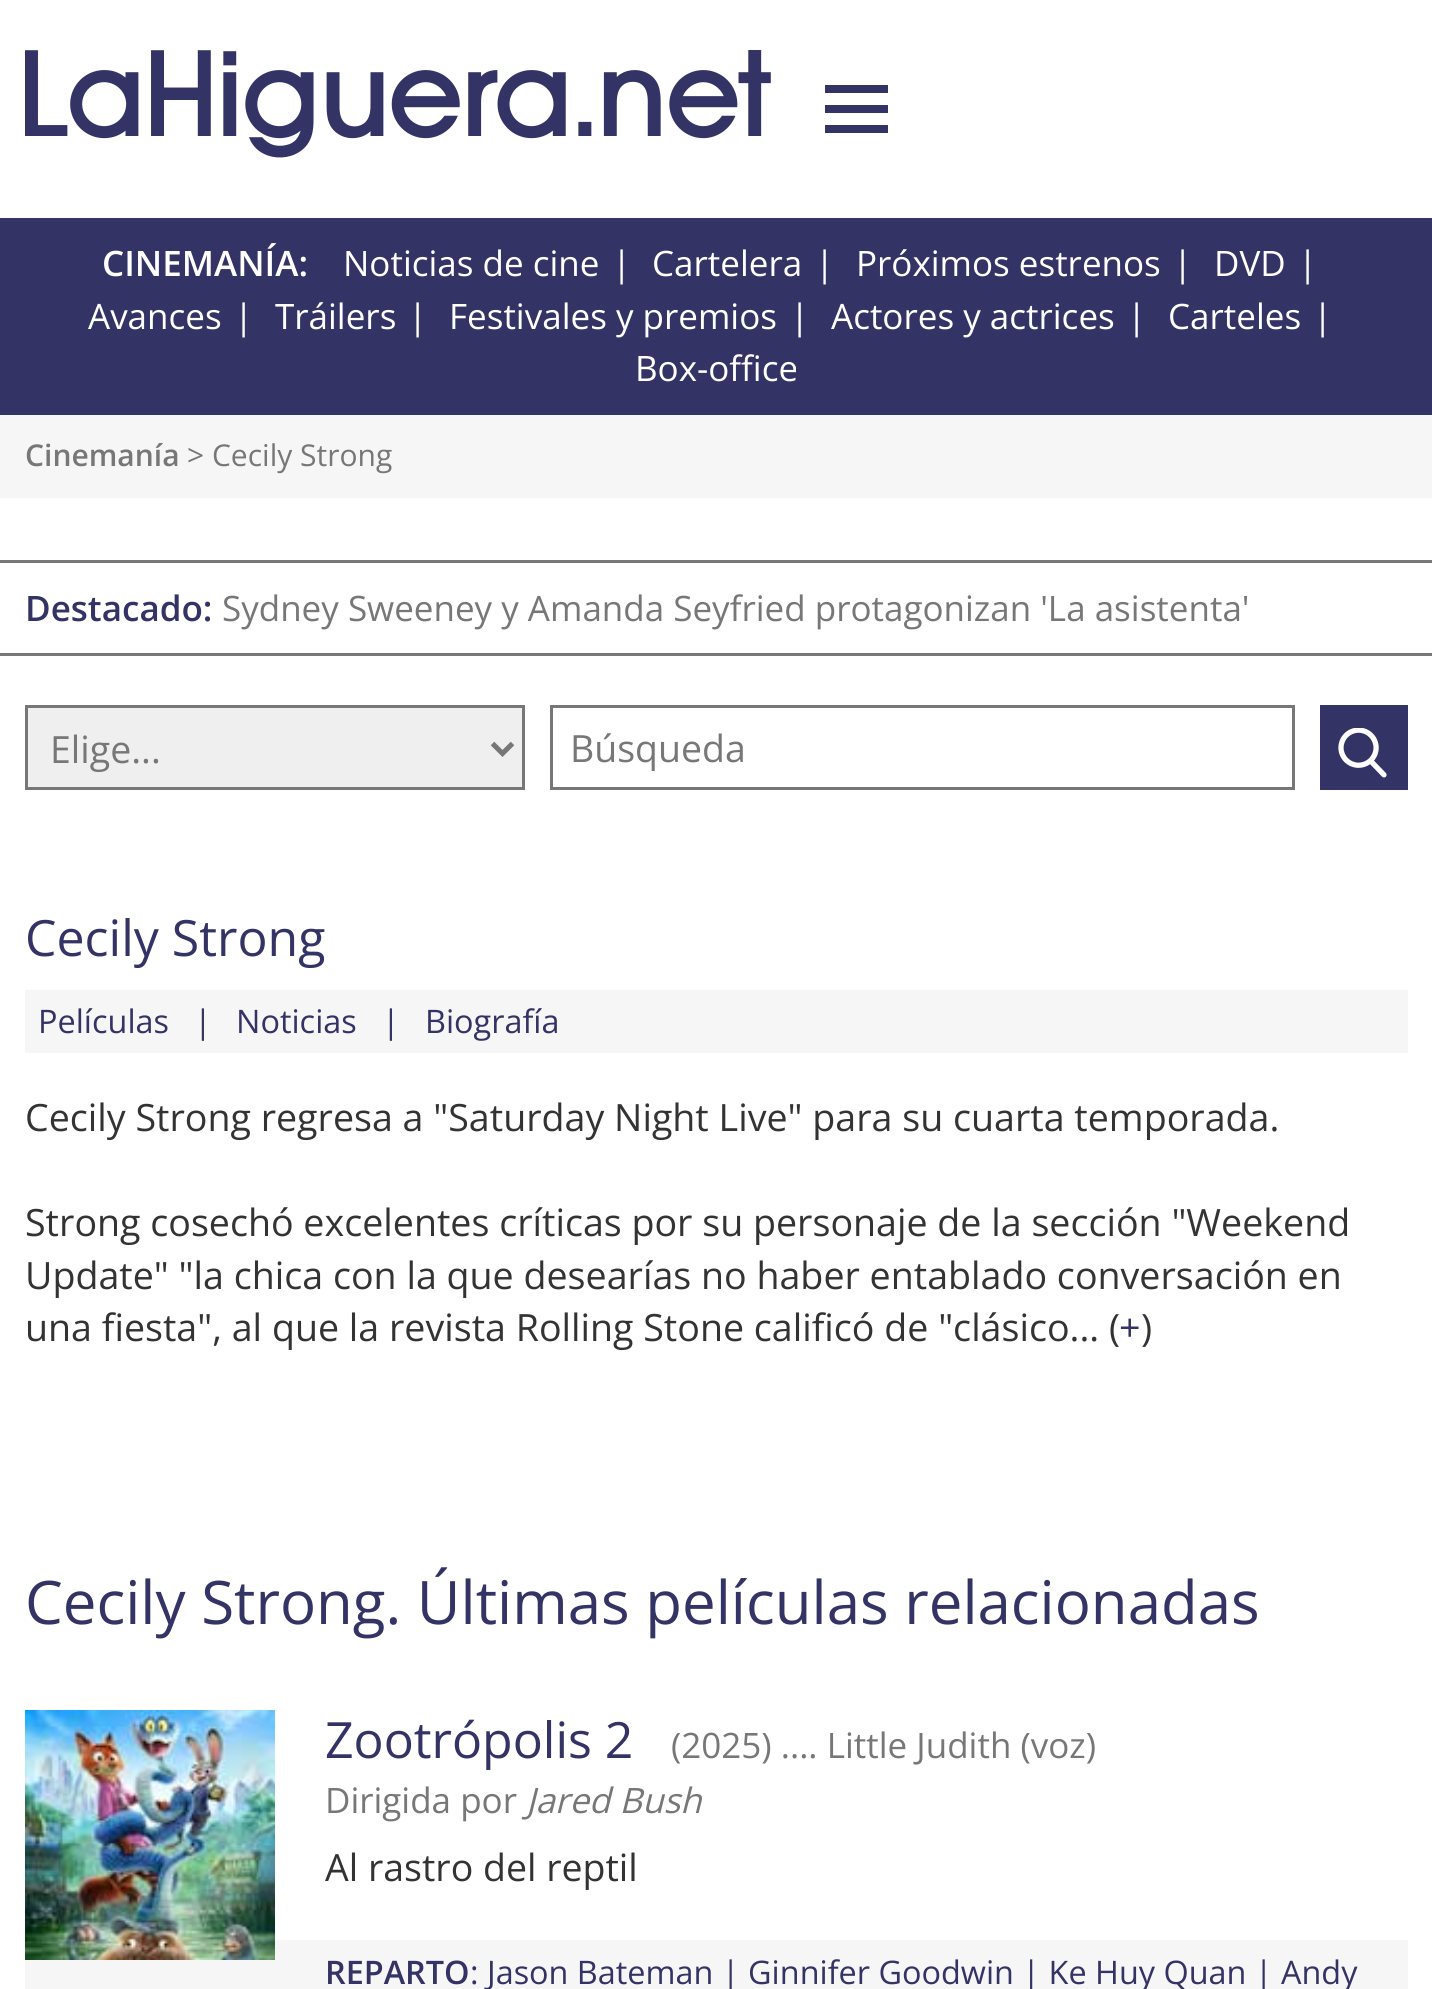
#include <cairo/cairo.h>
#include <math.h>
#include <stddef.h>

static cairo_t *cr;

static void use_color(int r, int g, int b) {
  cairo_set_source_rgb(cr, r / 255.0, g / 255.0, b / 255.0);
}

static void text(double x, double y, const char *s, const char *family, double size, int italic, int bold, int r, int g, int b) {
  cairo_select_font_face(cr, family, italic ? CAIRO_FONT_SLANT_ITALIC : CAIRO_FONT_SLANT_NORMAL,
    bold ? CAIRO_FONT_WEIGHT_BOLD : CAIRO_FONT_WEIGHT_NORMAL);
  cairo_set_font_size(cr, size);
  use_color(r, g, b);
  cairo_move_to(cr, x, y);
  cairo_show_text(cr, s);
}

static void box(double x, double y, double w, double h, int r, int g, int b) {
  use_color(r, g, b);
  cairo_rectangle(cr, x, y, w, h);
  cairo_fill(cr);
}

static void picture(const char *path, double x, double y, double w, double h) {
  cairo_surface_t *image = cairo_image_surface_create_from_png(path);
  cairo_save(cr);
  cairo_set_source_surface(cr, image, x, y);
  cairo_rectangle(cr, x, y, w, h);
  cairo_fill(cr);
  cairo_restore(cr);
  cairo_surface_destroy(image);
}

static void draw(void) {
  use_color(255, 255, 255);
  cairo_paint(cr);
  picture("img_01.png", 25, 50, 746, 108);
  box(825, 85, 63, 8, 51, 51, 102);
  box(825, 125, 63, 8, 51, 51, 102);
  box(825, 105, 63, 8, 51, 51, 102);
  box(0, 218, 1432, 197, 51, 51, 102);
  box(0, 415, 1432, 83, 246, 246, 246);
  box(0, 560, 1432, 3, 119, 119, 119);
  box(0, 653, 1432, 3, 119, 119, 119);
  use_color(239, 239, 239);
  cairo_rectangle(cr, 26.5, 706.5, 497, 82);
  cairo_fill_preserve(cr);
  use_color(119, 119, 119);
  cairo_set_line_width(cr, 3);
  cairo_stroke(cr);
  cairo_new_path(cr);
  cairo_move_to(cr, 492.5, 743.5);
  cairo_line_to(cr, 502.5, 753.5);
  cairo_line_to(cr, 512.5, 743.5);
  cairo_set_line_width(cr, 5);
  cairo_stroke(cr);
  cairo_rectangle(cr, 551.5, 706.5, 742, 82);
  cairo_set_line_width(cr, 3);
  cairo_stroke(cr);
  box(1320, 705, 88, 85, 51, 51, 102);
  picture("img_02.png", 1338, 728, 49, 50);
  box(25, 990, 1383, 63, 246, 246, 246);
  box(25, 1940, 1383, 49, 246, 246, 246);
  picture("img_03.png", 25, 1710, 250, 250);
  text(102, 276, "CINEMANÍA:", "Open Sans SemiBold", 35, 0, 0, 255, 255, 255);
  text(343, 276, "Noticias de cine", "Open Sans", 35, 0, 0, 255, 255, 255);
  text(612, 276, "|", "Open Sans", 35, 0, 0, 255, 255, 255);
  text(652, 276, "Cartelera", "Open Sans", 35, 0, 0, 255, 255, 255);
  text(815, 276, "|", "Open Sans", 35, 0, 0, 255, 255, 255);
  text(856, 276, "Próximos estrenos", "Open Sans", 35, 0, 0, 255, 255, 255);
  text(1173, 276, "|", "Open Sans", 35, 0, 0, 255, 255, 255);
  text(1214, 276, "DVD", "Open Sans", 35, 0, 0, 255, 255, 255);
  text(1298, 276, "|", "Open Sans", 35, 0, 0, 255, 255, 255);
  text(88, 329, "Avances", "Open Sans", 35, 0, 0, 255, 255, 255);
  text(234, 329, "|", "Open Sans", 35, 0, 0, 255, 255, 255);
  text(275, 329, "Tráilers", "Open Sans", 35, 0, 0, 255, 255, 255);
  text(408, 329, "|", "Open Sans", 35, 0, 0, 255, 255, 255);
  text(449, 329, "Festivales y premios", "Open Sans", 35, 0, 0, 255, 255, 255);
  text(790, 329, "|", "Open Sans", 35, 0, 0, 255, 255, 255);
  text(831, 329, "Actores y actrices", "Open Sans", 35, 0, 0, 255, 255, 255);
  text(1127, 329, "|", "Open Sans", 35, 0, 0, 255, 255, 255);
  text(1168, 329, "Carteles", "Open Sans", 35, 0, 0, 255, 255, 255);
  text(1313, 329, "|", "Open Sans", 35, 0, 0, 255, 255, 255);
  text(635, 381, "Box-office", "Open Sans", 35, 0, 0, 255, 255, 255);
  text(25, 466, "Cinemanía", "Open Sans SemiBold", 30, 0, 0, 119, 119, 119);
  text(187, 466, "> Cecily Strong", "Open Sans", 30, 0, 0, 119, 119, 119);
  text(25, 621, "Destacado:", "Open Sans SemiBold", 35, 0, 0, 51, 51, 102);
  text(222, 621, "Sydney Sweeney y Amanda Seyfried protagonizan 'La asistenta'", "Open Sans", 35, 0, 0, 119, 119, 119);
  text(50, 763, "Elige...", "Open Sans", 37.5, 0, 0, 119, 119, 119);
  text(570, 762, "Búsqueda", "Open Sans", 37.5, 0, 0, 119, 119, 119);
  text(25, 956, "Cecily Strong", "Open Sans", 50, 0, 0, 51, 51, 102);
  text(38, 1033, "Películas", "Open Sans", 32.4, 0, 0, 51, 51, 102);
  text(194, 1033, "|", "Open Sans", 32.4, 0, 0, 51, 51, 102);
  text(236, 1033, "Noticias", "Open Sans", 32.4, 0, 0, 51, 51, 102);
  text(382, 1033, "|", "Open Sans", 32.4, 0, 0, 51, 51, 102);
  text(425, 1033, "Biografía", "Open Sans", 32.4, 0, 0, 51, 51, 102);
  text(25, 1131, "Cecily Strong regresa a \"Saturday Night Live\" para su cuarta temporada.", "Open Sans", 37.6, 0, 0, 51, 51, 51);
  text(25, 1236, "Strong cosechó excelentes críticas por su personaje de la sección \"Weekend", "Open Sans", 37.6, 0, 0, 51, 51, 51);
  text(25, 1289, "Update\" \"la chica con la que desearías no haber entablado conversación en", "Open Sans", 37.6, 0, 0, 51, 51, 51);
  text(25, 1341, "una fiesta\", al que la revista Rolling Stone calificó de \"clásico... (", "Open Sans", 37.6, 0, 0, 51, 51, 51);
  text(1119, 1341, "+", "Open Sans", 37.6, 0, 0, 51, 51, 102);
  text(1141, 1341, ")", "Open Sans", 37.6, 0, 0, 51, 51, 51);
  text(25, 1624, "Cecily Strong. Últimas películas relacionadas", "Open Sans", 60, 0, 0, 51, 51, 102);
  text(325, 1758, "Zootrópolis 2", "Open Sans", 50, 0, 0, 51, 51, 102);
  text(671, 1758, "(2025) .... Little Judith (voz)", "Open Sans", 35, 0, 0, 119, 119, 119);
  text(325, 1813, "Dirigida por", "Open Sans", 35, 0, 0, 119, 119, 119);
  text(526, 1813, "Jared Bush", "Open Sans", 35, 1, 0, 119, 119, 119);
  text(325, 1881, "Al rastro del reptil", "Open Sans", 37.5, 0, 0, 51, 51, 51);
  text(325, 1984, "REPARTO", "Open Sans SemiBold", 32.4, 0, 0, 51, 51, 102);
  text(470, 1984, ": Jason Bateman | Ginnifer Goodwin | Ke Huy Quan | Andy", "Open Sans", 32.4, 0, 0, 51, 51, 102);
}

int main(void) {
  cairo_surface_t *surface = cairo_image_surface_create(CAIRO_FORMAT_RGB24, 1432, 1989);
  cr = cairo_create(surface);
  cairo_font_options_t *options = cairo_font_options_create();
  cairo_font_options_set_hint_metrics(options, CAIRO_HINT_METRICS_OFF);
  cairo_font_options_set_hint_style(options, CAIRO_HINT_STYLE_NONE);
  cairo_set_font_options(cr, options);
  cairo_set_miter_limit(cr, 4);
  draw();
  cairo_surface_write_to_png(surface, "out.png");
  cairo_font_options_destroy(options);
  cairo_destroy(cr);
  cairo_surface_destroy(surface);
  return 0;
}
